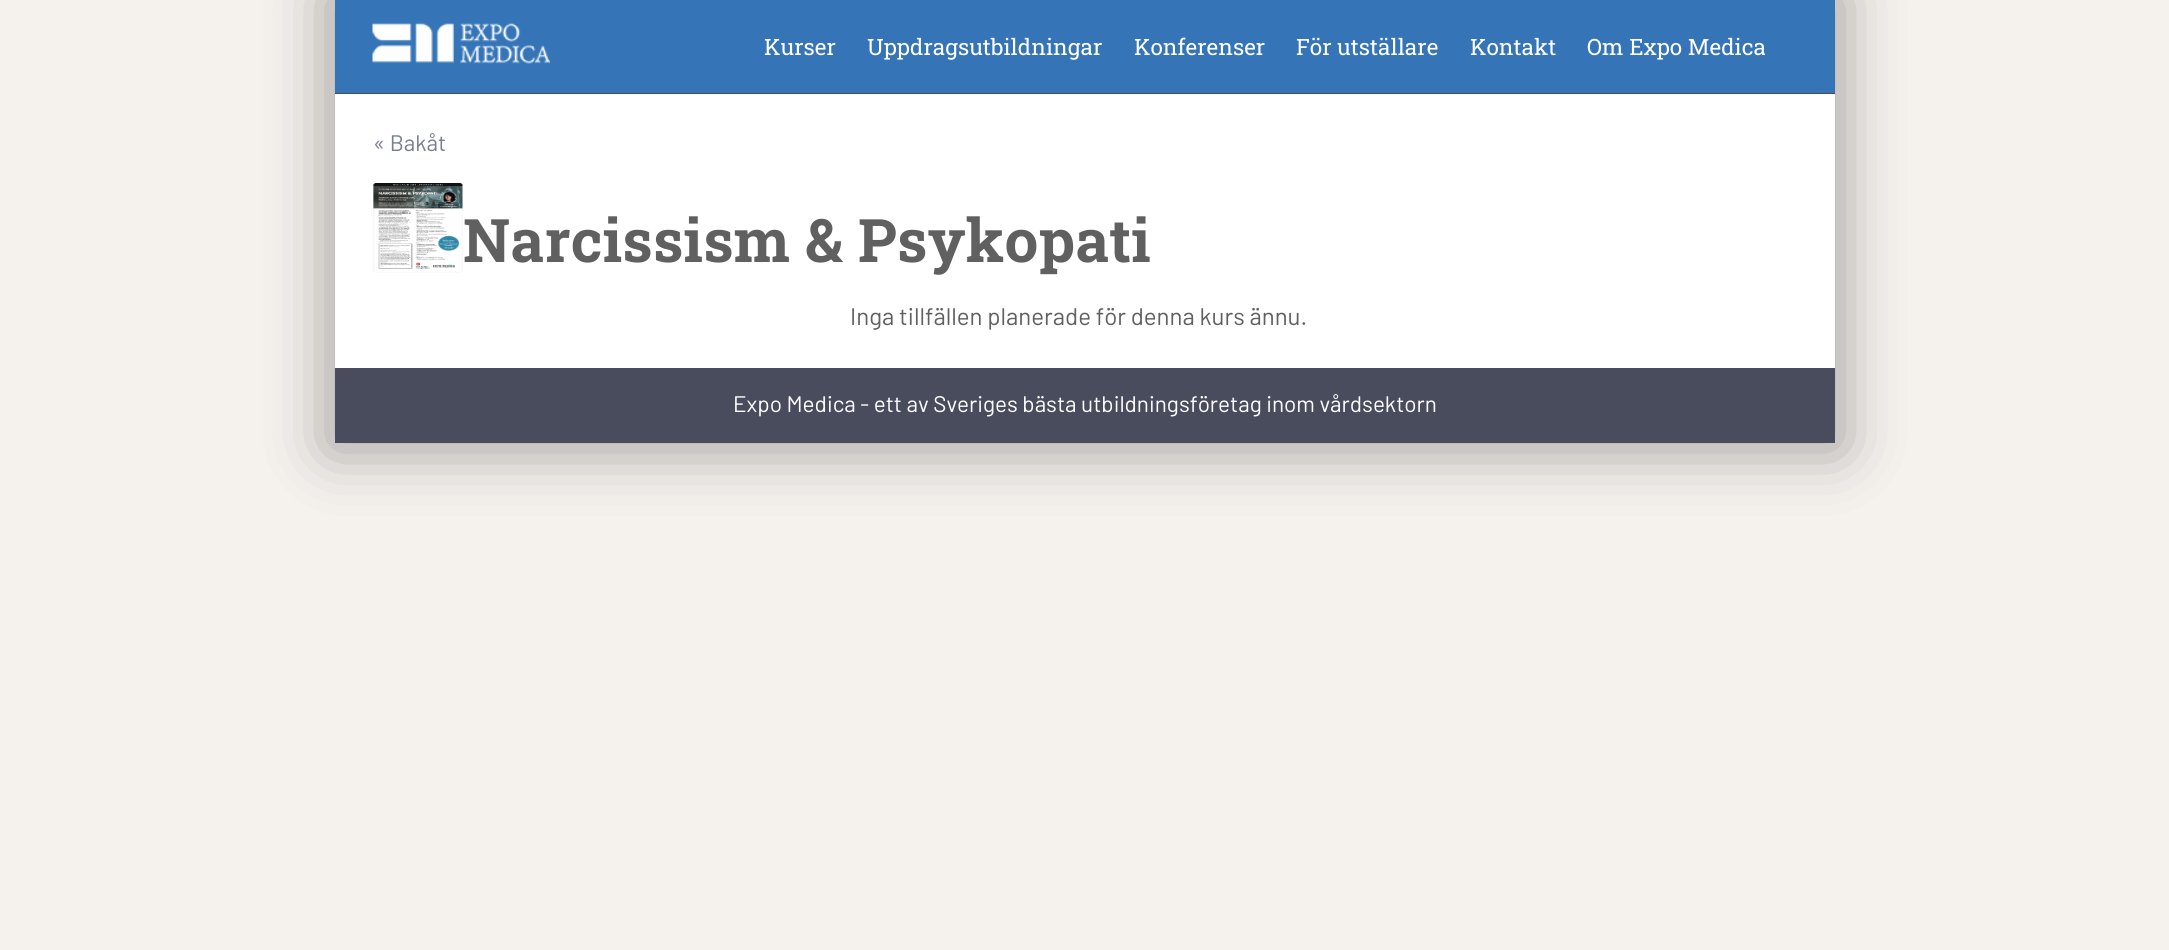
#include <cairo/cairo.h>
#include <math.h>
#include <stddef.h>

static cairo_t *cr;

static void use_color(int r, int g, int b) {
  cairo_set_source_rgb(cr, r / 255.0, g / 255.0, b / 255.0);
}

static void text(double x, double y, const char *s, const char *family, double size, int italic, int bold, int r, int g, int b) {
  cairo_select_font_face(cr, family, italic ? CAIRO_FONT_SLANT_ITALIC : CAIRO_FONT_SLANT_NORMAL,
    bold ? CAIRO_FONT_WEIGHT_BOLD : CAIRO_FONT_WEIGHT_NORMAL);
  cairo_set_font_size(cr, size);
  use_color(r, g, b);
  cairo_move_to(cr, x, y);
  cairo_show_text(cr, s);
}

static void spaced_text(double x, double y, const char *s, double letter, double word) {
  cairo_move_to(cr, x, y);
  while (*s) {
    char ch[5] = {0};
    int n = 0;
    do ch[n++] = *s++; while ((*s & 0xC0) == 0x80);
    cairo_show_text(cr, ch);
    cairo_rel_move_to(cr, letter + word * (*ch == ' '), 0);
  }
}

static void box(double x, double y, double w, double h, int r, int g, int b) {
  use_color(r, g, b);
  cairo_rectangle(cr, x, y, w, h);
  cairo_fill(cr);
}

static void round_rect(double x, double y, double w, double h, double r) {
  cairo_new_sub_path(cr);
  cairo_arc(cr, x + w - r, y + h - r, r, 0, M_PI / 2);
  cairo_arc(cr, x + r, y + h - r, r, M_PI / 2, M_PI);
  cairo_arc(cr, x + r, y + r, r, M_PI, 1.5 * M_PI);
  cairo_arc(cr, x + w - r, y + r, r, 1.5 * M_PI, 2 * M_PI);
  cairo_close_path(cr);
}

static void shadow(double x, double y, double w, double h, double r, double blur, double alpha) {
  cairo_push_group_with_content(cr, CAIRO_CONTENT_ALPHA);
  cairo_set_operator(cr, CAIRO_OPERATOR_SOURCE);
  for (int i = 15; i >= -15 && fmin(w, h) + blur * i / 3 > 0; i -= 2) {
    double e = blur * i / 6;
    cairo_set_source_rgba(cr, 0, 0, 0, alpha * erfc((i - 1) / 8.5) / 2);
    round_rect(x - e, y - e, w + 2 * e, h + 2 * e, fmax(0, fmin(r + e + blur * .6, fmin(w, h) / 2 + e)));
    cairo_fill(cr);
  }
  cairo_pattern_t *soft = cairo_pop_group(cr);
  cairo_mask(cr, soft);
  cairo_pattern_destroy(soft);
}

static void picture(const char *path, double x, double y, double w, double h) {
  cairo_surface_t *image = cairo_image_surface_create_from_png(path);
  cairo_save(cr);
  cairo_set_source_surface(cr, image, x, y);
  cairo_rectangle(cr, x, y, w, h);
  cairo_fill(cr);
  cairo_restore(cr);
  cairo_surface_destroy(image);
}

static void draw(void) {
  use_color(245, 241, 237);
  cairo_paint(cr);
  use_color(0, 0, 0);
  shadow(329, -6, 1512, 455, 0, 31, 0.35);
  box(335, 0, 1500, 93, 53, 116, 183);
  box(335, 93, 1500, 1, 72, 75, 93);
  picture("img_01.png", 372, 22, 178, 42);
  box(335, 94, 1500, 274, 255, 255, 255);
  picture("img_02.png", 373, 183, 90, 90);
  box(335, 368, 1500, 75, 72, 76, 93);
  text(764, 55, "Kurser", "Roboto Slab", 22.5, 0, 0, 255, 255, 255);
  text(867, 55, "Uppdragsutbildningar", "Roboto Slab", 22.5, 0, 0, 255, 255, 255);
  text(1134, 55, "Konferenser", "Roboto Slab", 22.5, 0, 0, 255, 255, 255);
  text(1296, 55, "För utställare", "Roboto Slab", 22.5, 0, 0, 255, 255, 255);
  text(1470, 55, "Kontakt", "Roboto Slab", 22.5, 0, 0, 255, 255, 255);
  text(1587, 55, "Om Expo Medica", "Roboto Slab", 22.5, 0, 0, 255, 255, 255);
  text(373, 151, "« Bakåt", "Barlow", 22.5, 0, 0, 120, 124, 148);
  cairo_select_font_face(cr, "Roboto Slab", CAIRO_FONT_SLANT_NORMAL, CAIRO_FONT_WEIGHT_BOLD);
  cairo_set_font_size(cr, 60);
  use_color(96, 96, 96);
  spaced_text(463, 262, "Narcissism & Psykopati", 0.3, 0);
  text(850, 325, "Inga tillfällen planerade för denna kurs ännu.", "Barlow", 24, 0, 0, 96, 96, 96);
  text(733, 412, "Expo Medica - ett av Sveriges bästa utbildningsföretag inom vårdsektorn", "Barlow", 22.5, 0, 0, 255, 255, 255);
}

int main(void) {
  cairo_surface_t *surface = cairo_image_surface_create(CAIRO_FORMAT_RGB24, 2169, 950);
  cr = cairo_create(surface);
  cairo_font_options_t *options = cairo_font_options_create();
  cairo_font_options_set_hint_metrics(options, CAIRO_HINT_METRICS_OFF);
  cairo_font_options_set_hint_style(options, CAIRO_HINT_STYLE_NONE);
  cairo_set_font_options(cr, options);
  cairo_set_miter_limit(cr, 4);
  draw();
  cairo_surface_write_to_png(surface, "out.png");
  cairo_font_options_destroy(options);
  cairo_destroy(cr);
  cairo_surface_destroy(surface);
  return 0;
}
